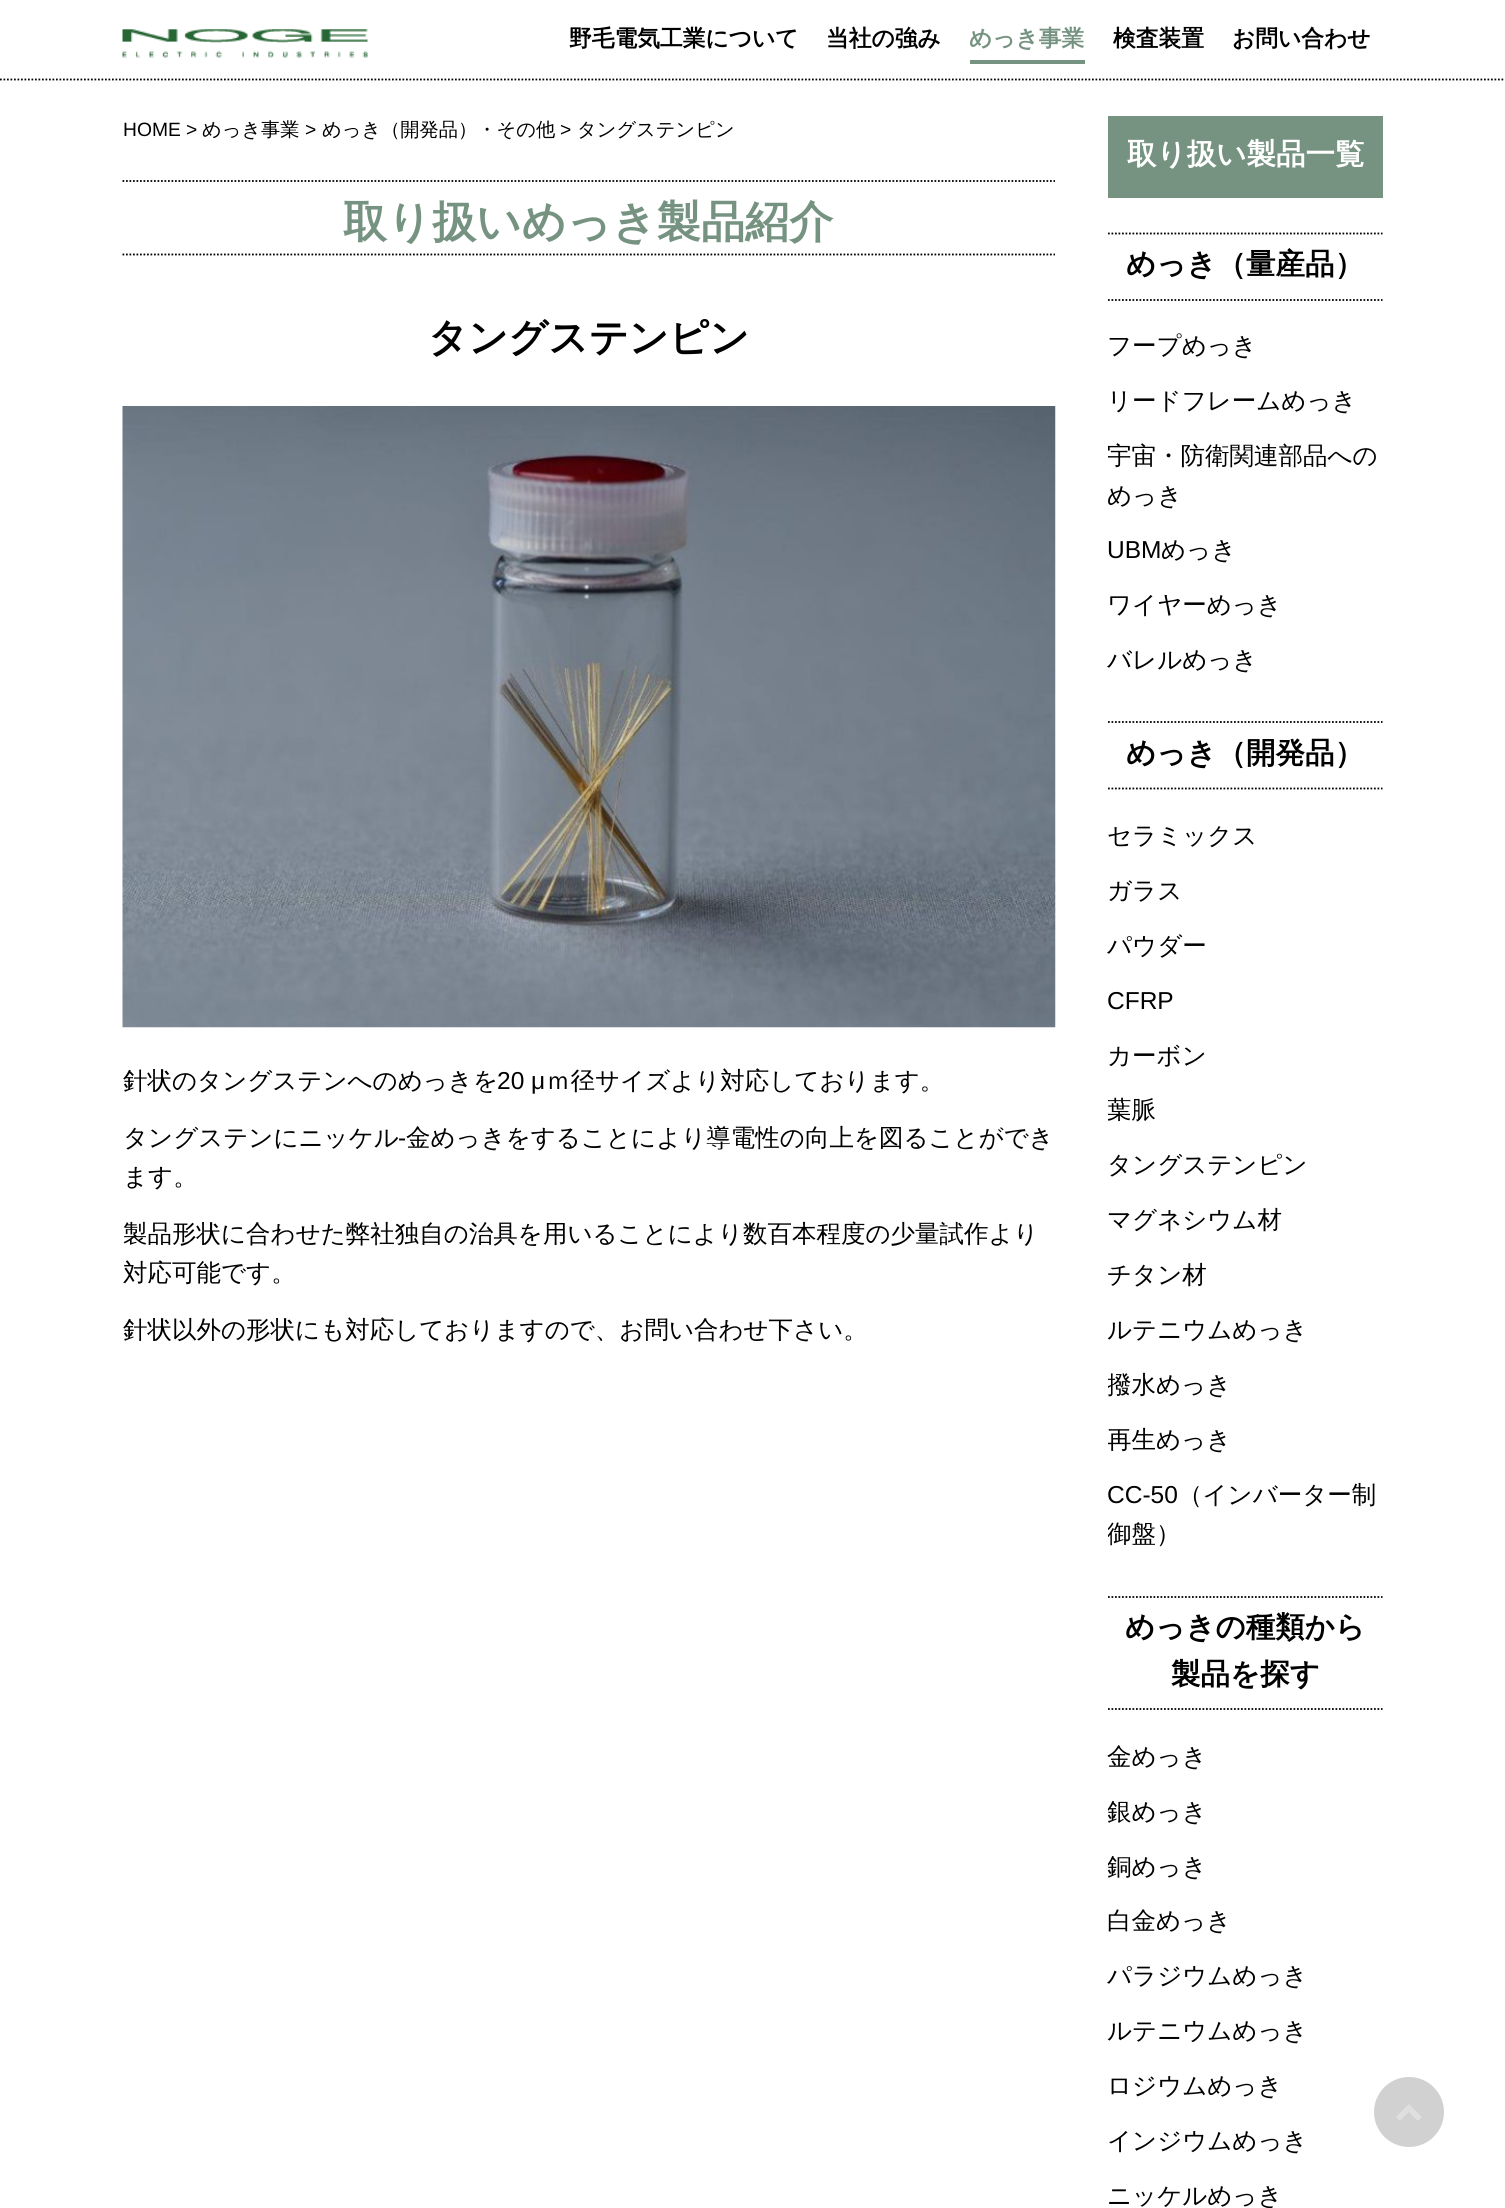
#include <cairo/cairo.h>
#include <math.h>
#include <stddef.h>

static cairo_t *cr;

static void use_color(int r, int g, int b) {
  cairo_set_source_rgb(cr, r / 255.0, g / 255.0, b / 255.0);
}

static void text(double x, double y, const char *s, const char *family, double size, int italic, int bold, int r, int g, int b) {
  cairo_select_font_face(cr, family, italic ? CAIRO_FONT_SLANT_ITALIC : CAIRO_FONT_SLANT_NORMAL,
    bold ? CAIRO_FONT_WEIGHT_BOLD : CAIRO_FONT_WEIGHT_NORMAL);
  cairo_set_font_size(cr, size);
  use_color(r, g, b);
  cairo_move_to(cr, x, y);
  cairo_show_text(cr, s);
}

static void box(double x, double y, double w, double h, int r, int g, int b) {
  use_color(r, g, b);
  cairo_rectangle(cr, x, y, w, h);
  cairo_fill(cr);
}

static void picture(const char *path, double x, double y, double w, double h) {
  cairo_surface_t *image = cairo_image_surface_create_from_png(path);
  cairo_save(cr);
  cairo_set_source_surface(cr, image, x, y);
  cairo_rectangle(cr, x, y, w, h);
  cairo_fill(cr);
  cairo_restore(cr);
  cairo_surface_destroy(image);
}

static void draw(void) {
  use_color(255, 255, 255);
  cairo_paint(cr);
  cairo_new_path(cr);
  cairo_move_to(cr, 0, 79.5);
  cairo_line_to(cr, 1505, 79.5);
  use_color(0, 0, 0);
  cairo_set_line_width(cr, 1.8);
  cairo_set_dash(cr, (double[]){1.75, 1.75}, 2, 0);
  cairo_stroke(cr);
  picture("img_01.png", 122, 29, 246, 29);
  box(970, 60, 115, 4, 118, 147, 130);
  cairo_new_path(cr);
  cairo_move_to(cr, 122.5, 181);
  cairo_line_to(cr, 1055, 181);
  use_color(0, 0, 0);
  cairo_stroke(cr);
  cairo_new_path(cr);
  cairo_move_to(cr, 122.5, 254.5);
  cairo_line_to(cr, 1055, 254.5);
  cairo_stroke(cr);
  picture("img_02.png", 122, 406, 934, 622);
  box(1108, 116, 275, 82, 118, 147, 130);
  cairo_new_path(cr);
  cairo_move_to(cr, 1108, 233.5);
  cairo_line_to(cr, 1382.5, 233.5);
  use_color(0, 0, 0);
  cairo_stroke(cr);
  cairo_new_path(cr);
  cairo_move_to(cr, 1108, 300);
  cairo_line_to(cr, 1382.5, 300);
  cairo_stroke(cr);
  cairo_new_path(cr);
  cairo_move_to(cr, 1108, 722);
  cairo_line_to(cr, 1382.5, 722);
  cairo_stroke(cr);
  cairo_new_path(cr);
  cairo_move_to(cr, 1108, 788.5);
  cairo_line_to(cr, 1382.5, 788.5);
  cairo_stroke(cr);
  cairo_new_path(cr);
  cairo_move_to(cr, 1108, 1597);
  cairo_line_to(cr, 1382.5, 1597);
  cairo_stroke(cr);
  cairo_new_path(cr);
  cairo_move_to(cr, 1108, 1709);
  cairo_line_to(cr, 1382.5, 1709);
  cairo_stroke(cr);
  use_color(209, 209, 209);
  cairo_arc(cr, 1409, 2112, 35, 0, 2 * M_PI);
  cairo_fill(cr);
  picture("img_03.png", 1396, 2104, 26, 17);
  text(569, 46, "野毛電気工業について", "WenQuanYi Zen Hei", 22.75, 0, 1, 0, 0, 0);
  text(826, 46, "当社の強み", "WenQuanYi Zen Hei", 22.75, 0, 1, 0, 0, 0);
  text(969, 46, "めっき事業", "WenQuanYi Zen Hei", 22.75, 0, 1, 118, 147, 130);
  text(1113, 46, "検査装置", "WenQuanYi Zen Hei", 22.75, 0, 1, 0, 0, 0);
  text(1232, 46, "お問い合わせ", "WenQuanYi Zen Hei", 22.75, 0, 1, 0, 0, 0);
  text(123, 136, "HOME >", "Liberation Sans", 19.25, 0, 0, 0, 0, 0);
  text(202, 136, "めっき事業", "WenQuanYi Zen Hei Medium", 19.25, 0, 0, 0, 0, 0);
  text(305, 136, ">", "Liberation Sans", 19.25, 0, 0, 0, 0, 0);
  text(322, 136, "めっき（開発品）・その他", "WenQuanYi Zen Hei Medium", 19.25, 0, 0, 0, 0, 0);
  text(560, 136, ">", "Liberation Sans", 19.25, 0, 0, 0, 0, 0);
  text(577, 136, "タングステンピン", "WenQuanYi Zen Hei Medium", 19.25, 0, 0, 0, 0, 0);
  text(343, 237, "取り扱いめっき製品紹介", "WenQuanYi Zen Hei", 44.1, 0, 1, 118, 147, 130);
  text(428, 351, "タングステンピン", "WenQuanYi Zen Hei", 39.25, 0, 1, 0, 0, 0);
  text(123, 1089, "針状のタングステンへのめっきを", "WenQuanYi Zen Hei Medium", 24.5, 0, 0, 0, 0, 0);
  text(497, 1089, "20 μ", "Liberation Sans", 24.5, 0, 0, 0, 0, 0);
  text(546, 1089, "ｍ径サイズより対応しております。", "WenQuanYi Zen Hei Medium", 24.5, 0, 0, 0, 0, 0);
  text(123, 1146, "タングステンにニッケル", "WenQuanYi Zen Hei Medium", 24.5, 0, 0, 0, 0, 0);
  text(398, 1146, "-", "Liberation Sans", 24.5, 0, 0, 0, 0, 0);
  text(406, 1146, "金めっきをすることにより導電性の向上を図ることができ", "WenQuanYi Zen Hei Medium", 24.5, 0, 0, 0, 0, 0);
  text(123, 1185, "ます。", "WenQuanYi Zen Hei Medium", 24.5, 0, 0, 0, 0, 0);
  text(123, 1242, "製品形状に合わせた弊社独自の治具を用いることにより数百本程度の少量試作より", "WenQuanYi Zen Hei Medium", 24.5, 0, 0, 0, 0, 0);
  text(123, 1281, "対応可能です。", "WenQuanYi Zen Hei Medium", 24.5, 0, 0, 0, 0, 0);
  text(123, 1338, "針状以外の形状にも対応しておりますので、お問い合わせ下さい。", "WenQuanYi Zen Hei Medium", 24.5, 0, 0, 0, 0, 0);
  text(1127, 164, "取り扱い製品一覧", "WenQuanYi Zen Hei", 29.5, 0, 1, 255, 255, 255);
  text(1126, 274, "めっき（量産品）", "WenQuanYi Zen Hei", 29.5, 0, 1, 0, 0, 0);
  text(1107, 354, "フープめっき", "WenQuanYi Zen Hei Medium", 24.5, 0, 0, 0, 0, 0);
  text(1107, 409, "リードフレームめっき", "WenQuanYi Zen Hei Medium", 24.5, 0, 0, 0, 0, 0);
  cairo_save(cr);
  cairo_rectangle(cr, 1108, 116, 275, 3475);
  cairo_clip(cr);
  text(1107, 464, "宇宙・防衛関連部品への", "WenQuanYi Zen Hei Medium", 24.5, 0, 0, 0, 0, 0);
  cairo_restore(cr);
  text(1107, 504, "めっき", "WenQuanYi Zen Hei Medium", 24.5, 0, 0, 0, 0, 0);
  text(1107, 558, "UBM", "Liberation Sans", 24.5, 0, 0, 0, 0, 0);
  text(1161, 558, "めっき", "WenQuanYi Zen Hei Medium", 24.5, 0, 0, 0, 0, 0);
  text(1107, 613, "ワイヤーめっき", "WenQuanYi Zen Hei Medium", 24.5, 0, 0, 0, 0, 0);
  text(1107, 668, "バレルめっき", "WenQuanYi Zen Hei Medium", 24.5, 0, 0, 0, 0, 0);
  text(1126, 763, "めっき（開発品）", "WenQuanYi Zen Hei", 29.5, 0, 1, 0, 0, 0);
  text(1107, 844, "セラミックス", "WenQuanYi Zen Hei Medium", 24.5, 0, 0, 0, 0, 0);
  text(1107, 899, "ガラス", "WenQuanYi Zen Hei Medium", 24.5, 0, 0, 0, 0, 0);
  text(1107, 954, "パウダー", "WenQuanYi Zen Hei Medium", 24.5, 0, 0, 0, 0, 0);
  text(1107, 1009, "CFRP", "Liberation Sans", 24.5, 0, 0, 0, 0, 0);
  text(1107, 1064, "カーボン", "WenQuanYi Zen Hei Medium", 24.5, 0, 0, 0, 0, 0);
  cairo_save(cr);
  cairo_rectangle(cr, 1108, 116, 275, 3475);
  cairo_clip(cr);
  text(1107, 1118, "葉脈", "WenQuanYi Zen Hei Medium", 24.5, 0, 0, 0, 0, 0);
  cairo_restore(cr);
  text(1107, 1173, "タングステンピン", "WenQuanYi Zen Hei Medium", 24.5, 0, 0, 0, 0, 0);
  text(1107, 1228, "マグネシウム材", "WenQuanYi Zen Hei Medium", 24.5, 0, 0, 0, 0, 0);
  text(1107, 1283, "チタン材", "WenQuanYi Zen Hei Medium", 24.5, 0, 0, 0, 0, 0);
  text(1107, 1338, "ルテニウムめっき", "WenQuanYi Zen Hei Medium", 24.5, 0, 0, 0, 0, 0);
  cairo_save(cr);
  cairo_rectangle(cr, 1108, 116, 275, 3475);
  cairo_clip(cr);
  text(1107, 1393, "撥水めっき", "WenQuanYi Zen Hei Medium", 24.5, 0, 0, 0, 0, 0);
  text(1107, 1448, "再生めっき", "WenQuanYi Zen Hei Medium", 24.5, 0, 0, 0, 0, 0);
  cairo_restore(cr);
  text(1107, 1503, "CC-50", "Liberation Sans", 24.5, 0, 0, 0, 0, 0);
  text(1178, 1503, "（インバーター制", "WenQuanYi Zen Hei Medium", 24.5, 0, 0, 0, 0, 0);
  cairo_save(cr);
  cairo_rectangle(cr, 1108, 116, 275, 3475);
  cairo_clip(cr);
  text(1107, 1542, "御盤）", "WenQuanYi Zen Hei Medium", 24.5, 0, 0, 0, 0, 0);
  cairo_restore(cr);
  text(1125, 1637, "めっきの種類から", "WenQuanYi Zen Hei", 29.5, 0, 1, 0, 0, 0);
  text(1171, 1684, "製品を探す", "WenQuanYi Zen Hei", 29.5, 0, 1, 0, 0, 0);
  text(1107, 1765, "金めっき", "WenQuanYi Zen Hei Medium", 24.5, 0, 0, 0, 0, 0);
  cairo_save(cr);
  cairo_rectangle(cr, 1108, 116, 275, 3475);
  cairo_clip(cr);
  text(1107, 1820, "銀めっき", "WenQuanYi Zen Hei Medium", 24.5, 0, 0, 0, 0, 0);
  text(1107, 1875, "銅めっき", "WenQuanYi Zen Hei Medium", 24.5, 0, 0, 0, 0, 0);
  cairo_restore(cr);
  text(1107, 1929, "白金めっき", "WenQuanYi Zen Hei Medium", 24.5, 0, 0, 0, 0, 0);
  text(1107, 1984, "パラジウムめっき", "WenQuanYi Zen Hei Medium", 24.5, 0, 0, 0, 0, 0);
  text(1107, 2039, "ルテニウムめっき", "WenQuanYi Zen Hei Medium", 24.5, 0, 0, 0, 0, 0);
  text(1107, 2094, "ロジウムめっき", "WenQuanYi Zen Hei Medium", 24.5, 0, 0, 0, 0, 0);
  text(1107, 2149, "インジウムめっき", "WenQuanYi Zen Hei Medium", 24.5, 0, 0, 0, 0, 0);
  text(1107, 2204, "ニッケルめっき", "WenQuanYi Zen Hei Medium", 24.5, 0, 0, 0, 0, 0);
}

int main(void) {
  cairo_surface_t *surface = cairo_image_surface_create(CAIRO_FORMAT_RGB24, 1505, 2208);
  cr = cairo_create(surface);
  cairo_font_options_t *options = cairo_font_options_create();
  cairo_font_options_set_hint_metrics(options, CAIRO_HINT_METRICS_OFF);
  cairo_font_options_set_hint_style(options, CAIRO_HINT_STYLE_NONE);
  cairo_set_font_options(cr, options);
  cairo_set_miter_limit(cr, 4);
  draw();
  cairo_surface_write_to_png(surface, "out.png");
  cairo_font_options_destroy(options);
  cairo_destroy(cr);
  cairo_surface_destroy(surface);
  return 0;
}
